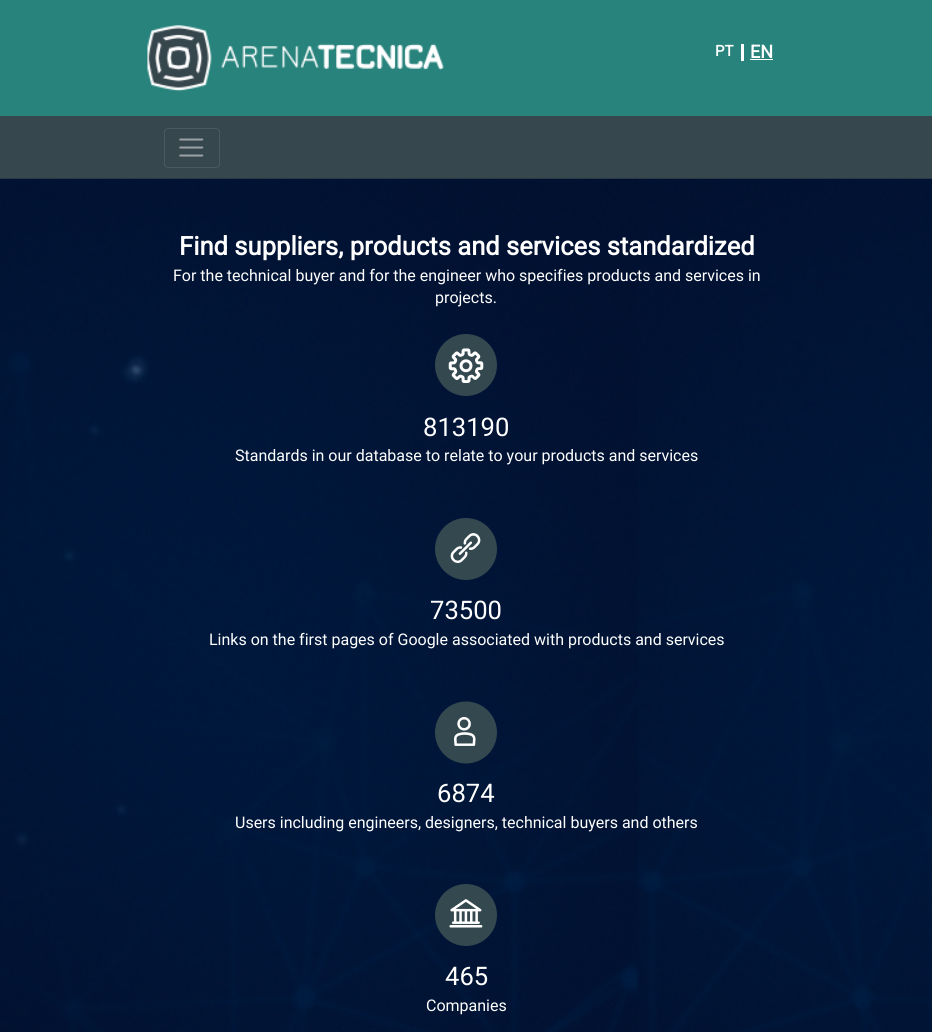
#include <cairo/cairo.h>
#include <math.h>
#include <stddef.h>

static cairo_t *cr;

static void use_color(int r, int g, int b) {
  cairo_set_source_rgb(cr, r / 255.0, g / 255.0, b / 255.0);
}

static void text(double x, double y, const char *s, const char *family, double size, int italic, int bold, int r, int g, int b) {
  cairo_select_font_face(cr, family, italic ? CAIRO_FONT_SLANT_ITALIC : CAIRO_FONT_SLANT_NORMAL,
    bold ? CAIRO_FONT_WEIGHT_BOLD : CAIRO_FONT_WEIGHT_NORMAL);
  cairo_set_font_size(cr, size);
  use_color(r, g, b);
  cairo_move_to(cr, x, y);
  cairo_show_text(cr, s);
}

static void box(double x, double y, double w, double h, int r, int g, int b) {
  use_color(r, g, b);
  cairo_rectangle(cr, x, y, w, h);
  cairo_fill(cr);
}

static void round_rect(double x, double y, double w, double h, double r) {
  cairo_new_sub_path(cr);
  cairo_arc(cr, x + w - r, y + h - r, r, 0, M_PI / 2);
  cairo_arc(cr, x + r, y + h - r, r, M_PI / 2, M_PI);
  cairo_arc(cr, x + r, y + r, r, M_PI, 1.5 * M_PI);
  cairo_arc(cr, x + w - r, y + r, r, 1.5 * M_PI, 2 * M_PI);
  cairo_close_path(cr);
}

static void picture(const char *path, double x, double y, double w, double h) {
  cairo_surface_t *image = cairo_image_surface_create_from_png(path);
  cairo_save(cr);
  cairo_set_source_surface(cr, image, x, y);
  cairo_rectangle(cr, x, y, w, h);
  cairo_fill(cr);
  cairo_restore(cr);
  cairo_surface_destroy(image);
}

static void draw(void) {
  use_color(40, 131, 124);
  cairo_paint(cr);
  picture("img_01.png", 147, 25, 297, 67);
  box(741, 44, 3, 17, 255, 255, 255);
  box(750, 59, 23, 1, 255, 255, 255);
  box(0, 116, 932, 63, 55, 71, 78);
  round_rect(164.5, 128.5, 55, 39, 3.5);
  use_color(75, 89, 96);
  cairo_set_line_width(cr, 1);
  cairo_stroke(cr);
  picture("img_02.png", 179, 138, 25, 19);
  picture("img_03.png", 0, 178, 932, 854);
  picture("img_04.png", 435, 334, 62, 62);
  picture("img_05.png", 435, 518, 62, 62);
  picture("img_06.png", 435, 701, 62, 63);
  picture("img_07.png", 435, 884, 62, 62);
  text(715, 56, "PT", "Roboto", 15, 0, 1, 255, 255, 255);
  text(750, 58, "EN", "Roboto", 18, 0, 1, 255, 255, 255);
  text(179, 255, "Find suppliers, products and services standardized", "Roboto", 25.6, 0, 1, 255, 255, 255);
  text(173, 281, "For the technical buyer and for the engineer who specifies products and services in", "Roboto", 16, 0, 0, 255, 255, 255);
  text(435, 303, "projects.", "Roboto", 16, 0, 0, 255, 255, 255);
  text(423, 436, "813190", "Roboto", 25.6, 0, 0, 255, 255, 255);
  text(235, 461, "Standards in our database to relate to your products and services", "Roboto", 16, 0, 0, 255, 255, 255);
  text(430, 619, "73500", "Roboto", 25.6, 0, 0, 255, 255, 255);
  text(209, 645, "Links on the first pages of Google associated with products and services", "Roboto", 16, 0, 0, 255, 255, 255);
  text(437, 802, "6874", "Roboto", 25.6, 0, 0, 255, 255, 255);
  text(235, 828, "Users including engineers, designers, technical buyers and others", "Roboto", 16, 0, 0, 255, 255, 255);
  text(445, 985, "465", "Roboto", 25.6, 0, 0, 255, 255, 255);
  text(426, 1011, "Companies", "Roboto", 16, 0, 0, 255, 255, 255);
}

int main(void) {
  cairo_surface_t *surface = cairo_image_surface_create(CAIRO_FORMAT_RGB24, 932, 1032);
  cr = cairo_create(surface);
  cairo_font_options_t *options = cairo_font_options_create();
  cairo_font_options_set_hint_metrics(options, CAIRO_HINT_METRICS_OFF);
  cairo_font_options_set_hint_style(options, CAIRO_HINT_STYLE_NONE);
  cairo_set_font_options(cr, options);
  cairo_set_miter_limit(cr, 4);
  draw();
  cairo_surface_write_to_png(surface, "out.png");
  cairo_font_options_destroy(options);
  cairo_destroy(cr);
  cairo_surface_destroy(surface);
  return 0;
}
